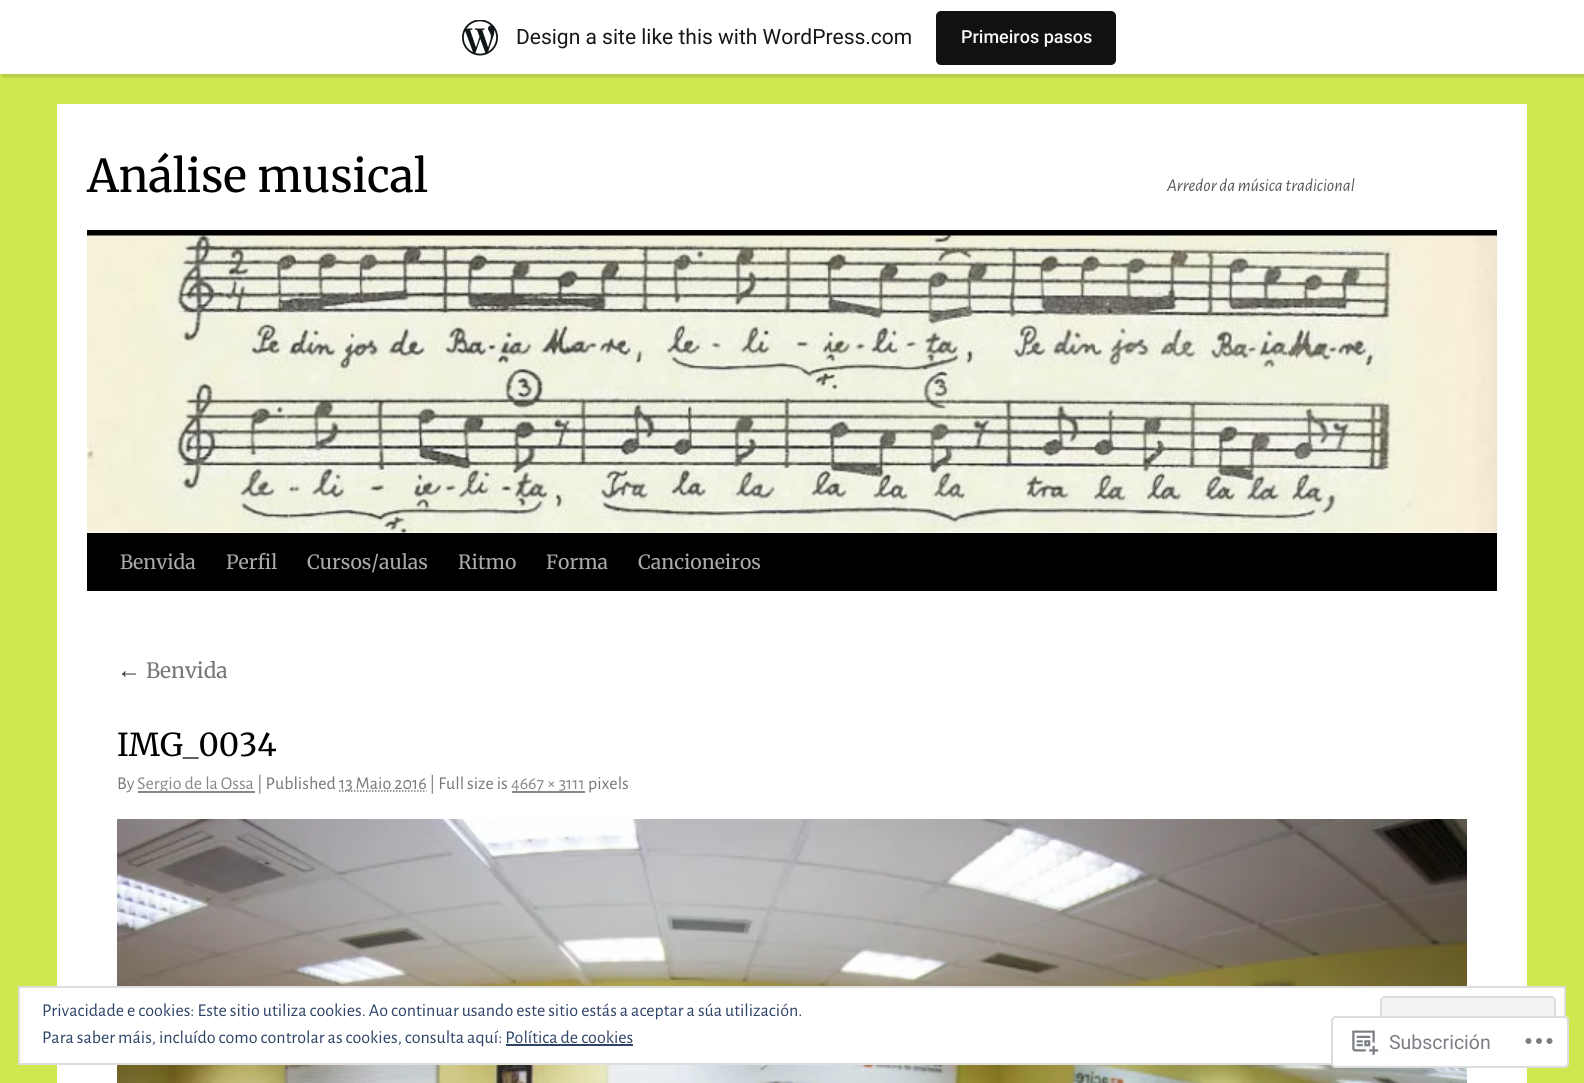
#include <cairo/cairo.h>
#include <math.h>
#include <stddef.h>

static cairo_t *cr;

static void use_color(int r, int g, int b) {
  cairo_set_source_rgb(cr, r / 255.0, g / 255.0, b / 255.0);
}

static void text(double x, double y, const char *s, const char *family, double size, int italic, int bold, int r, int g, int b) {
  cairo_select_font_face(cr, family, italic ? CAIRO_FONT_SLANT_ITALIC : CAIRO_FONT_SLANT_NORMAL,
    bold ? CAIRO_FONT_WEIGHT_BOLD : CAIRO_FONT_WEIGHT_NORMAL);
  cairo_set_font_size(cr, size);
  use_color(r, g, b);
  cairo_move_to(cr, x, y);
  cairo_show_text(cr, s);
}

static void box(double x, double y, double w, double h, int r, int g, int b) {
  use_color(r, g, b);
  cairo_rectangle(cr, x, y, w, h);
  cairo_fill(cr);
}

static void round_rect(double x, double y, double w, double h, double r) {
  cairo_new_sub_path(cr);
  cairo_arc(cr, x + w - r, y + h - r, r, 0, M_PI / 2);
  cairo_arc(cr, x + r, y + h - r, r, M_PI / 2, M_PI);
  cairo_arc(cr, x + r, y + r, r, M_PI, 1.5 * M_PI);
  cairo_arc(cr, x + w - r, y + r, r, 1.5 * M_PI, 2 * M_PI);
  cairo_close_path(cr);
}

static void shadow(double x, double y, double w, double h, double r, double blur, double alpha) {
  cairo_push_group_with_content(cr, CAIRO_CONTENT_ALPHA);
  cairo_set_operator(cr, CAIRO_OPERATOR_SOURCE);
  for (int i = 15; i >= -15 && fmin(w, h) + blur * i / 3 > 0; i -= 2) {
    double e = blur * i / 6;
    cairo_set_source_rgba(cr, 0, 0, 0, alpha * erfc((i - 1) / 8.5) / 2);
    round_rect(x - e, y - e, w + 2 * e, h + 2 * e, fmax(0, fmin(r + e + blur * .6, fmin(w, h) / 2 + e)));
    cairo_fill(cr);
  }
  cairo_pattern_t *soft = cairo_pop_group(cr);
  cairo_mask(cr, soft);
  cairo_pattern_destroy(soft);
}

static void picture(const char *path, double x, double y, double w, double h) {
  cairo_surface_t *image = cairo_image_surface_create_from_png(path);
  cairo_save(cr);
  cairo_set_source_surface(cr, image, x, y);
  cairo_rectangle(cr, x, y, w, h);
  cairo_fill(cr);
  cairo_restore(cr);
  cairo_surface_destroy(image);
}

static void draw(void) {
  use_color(209, 231, 81);
  cairo_paint(cr);
  use_color(0, 0, 0);
  shadow(0, 2, 1584, 73, 0, 1.5, 0.05);
  cairo_set_source_rgba(cr, 0, 0, 0, 0.08);
  cairo_new_path(cr);
  cairo_move_to(cr, 2, 74);
  cairo_line_to(cr, 2, 78);
  cairo_line_to(cr, 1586, 78);
  cairo_line_to(cr, 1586, 5);
  cairo_line_to(cr, 1584, 5);
  cairo_line_to(cr, 1584, 74);
  cairo_close_path(cr);
  cairo_fill(cr);
  box(0, 0, 1584, 74, 255, 255, 255);
  picture("img_01.png", 462, 20, 36, 36);
  use_color(17, 17, 17);
  round_rect(936, 11, 180, 54, 5);
  cairo_fill(cr);
  box(57, 104, 1470, 979, 255, 255, 255);
  box(87, 230, 1410, 6, 0, 0, 0);
  box(87, 533, 1410, 58, 0, 0, 0);
  picture("img_02.png", 87, 235, 1410, 298);
  box(138, 791, 117, 2, 136, 136, 136);
  cairo_new_path(cr);
  cairo_move_to(cr, 339, 791);
  cairo_line_to(cr, 426.5, 791);
  use_color(119, 119, 119);
  cairo_set_line_width(cr, 1.5);
  cairo_set_dash(cr, (double[]){1.5, 1.5}, 2, 0);
  cairo_stroke(cr);
  box(512, 791, 73, 2, 136, 136, 136);
  picture("img_03.png", 117, 819, 1350, 264);
  use_color(255, 255, 255);
  cairo_rectangle(cr, 19, 987, 1546, 77);
  cairo_fill_preserve(cr);
  use_color(222, 222, 222);
  cairo_set_line_width(cr, 2);
  cairo_set_dash(cr, NULL, 0, 0);
  cairo_stroke(cr);
  use_color(243, 243, 243);
  round_rect(1381, 997, 174, 57, 4);
  cairo_fill_preserve(cr);
  use_color(222, 222, 222);
  cairo_stroke(cr);
  box(506, 1044, 127, 2, 46, 68, 103);
  cairo_set_source_rgba(cr, 1, 1, 1, 0.98);
  round_rect(1331, 1016, 238, 52, 5);
  cairo_fill(cr);
  round_rect(1332, 1017, 236, 50, 4);
  cairo_set_source_rgba(cr, 0.863, 0.863, 0.871, 0.98);
  cairo_stroke(cr);
  picture("img_04.png", 1352, 1030, 27, 25);
  picture("img_05.png", 1525, 1038, 28, 6);
  text(516, 44, "Design a site like this with WordPress.com", "Roboto", 21, 0, 0, 23, 23, 23);
  text(961, 43, "Primeiros pasos", "Roboto Medium", 18, 0, 0, 246, 247, 247);
  text(87, 192, "Análise musical", "Merriweather Light", 45, 0, 0, 0, 0, 0);
  text(1167, 191, "Arredor da música tradicional", "Alegreya Sans", 18, 1, 0, 89, 89, 89);
  text(120, 569, "Benvida", "Merriweather Light", 19.5, 0, 0, 170, 170, 170);
  text(226, 569, "Perfil", "Merriweather Light", 19.5, 0, 0, 170, 170, 170);
  text(307, 569, "Cursos/aulas", "Merriweather Light", 19.5, 0, 0, 170, 170, 170);
  text(458, 569, "Ritmo", "Merriweather Light", 19.5, 0, 0, 170, 170, 170);
  text(546, 569, "Forma", "Merriweather Light", 19.5, 0, 0, 170, 170, 170);
  text(638, 569, "Cancioneiros", "Merriweather Light", 19.5, 0, 0, 170, 170, 170);
  text(117, 678, "←", "Liberation Serif", 24, 0, 0, 51, 51, 51);
  text(146, 678, "Benvida", "Merriweather Light", 21, 0, 0, 119, 119, 119);
  text(117, 756, "IMG_0034", "Merriweather Light", 31.5, 0, 0, 0, 0, 0);
  text(117, 789, "By", "Alegreya Sans", 18, 0, 0, 119, 119, 119);
  text(137, 789, "Sergio de la Ossa", "Alegreya Sans", 18, 0, 0, 136, 136, 136);
  text(257, 789, "| Published", "Alegreya Sans", 18, 0, 0, 119, 119, 119);
  text(339, 789, "13 Maio 2016 | Full size is", "Alegreya Sans", 18, 0, 0, 119, 119, 119);
  text(511, 789, "4667 × 3111", "Alegreya Sans", 18, 0, 0, 136, 136, 136);
  text(588, 789, "pixels", "Alegreya Sans", 18, 0, 0, 119, 119, 119);
  text(42, 1016, "Privacidade e cookies: Este sitio utiliza cookies. Ao continuar usando este sitio estás a aceptar a súa utilización.", "Alegreya Sans", 18, 0, 0, 46, 68, 103);
  text(42, 1043, "Para saber máis, incluído como controlar as cookies, consulta aquí: Política de cookies", "Alegreya Sans", 18, 0, 0, 46, 68, 103);
  text(1389, 1049, "Subscrición", "Roboto", 19.5, 0, 0, 122, 126, 132);
}

int main(void) {
  cairo_surface_t *surface = cairo_image_surface_create(CAIRO_FORMAT_RGB24, 1584, 1083);
  cr = cairo_create(surface);
  cairo_font_options_t *options = cairo_font_options_create();
  cairo_font_options_set_hint_metrics(options, CAIRO_HINT_METRICS_OFF);
  cairo_font_options_set_hint_style(options, CAIRO_HINT_STYLE_NONE);
  cairo_set_font_options(cr, options);
  cairo_set_miter_limit(cr, 4);
  draw();
  cairo_surface_write_to_png(surface, "out.png");
  cairo_font_options_destroy(options);
  cairo_destroy(cr);
  cairo_surface_destroy(surface);
  return 0;
}
